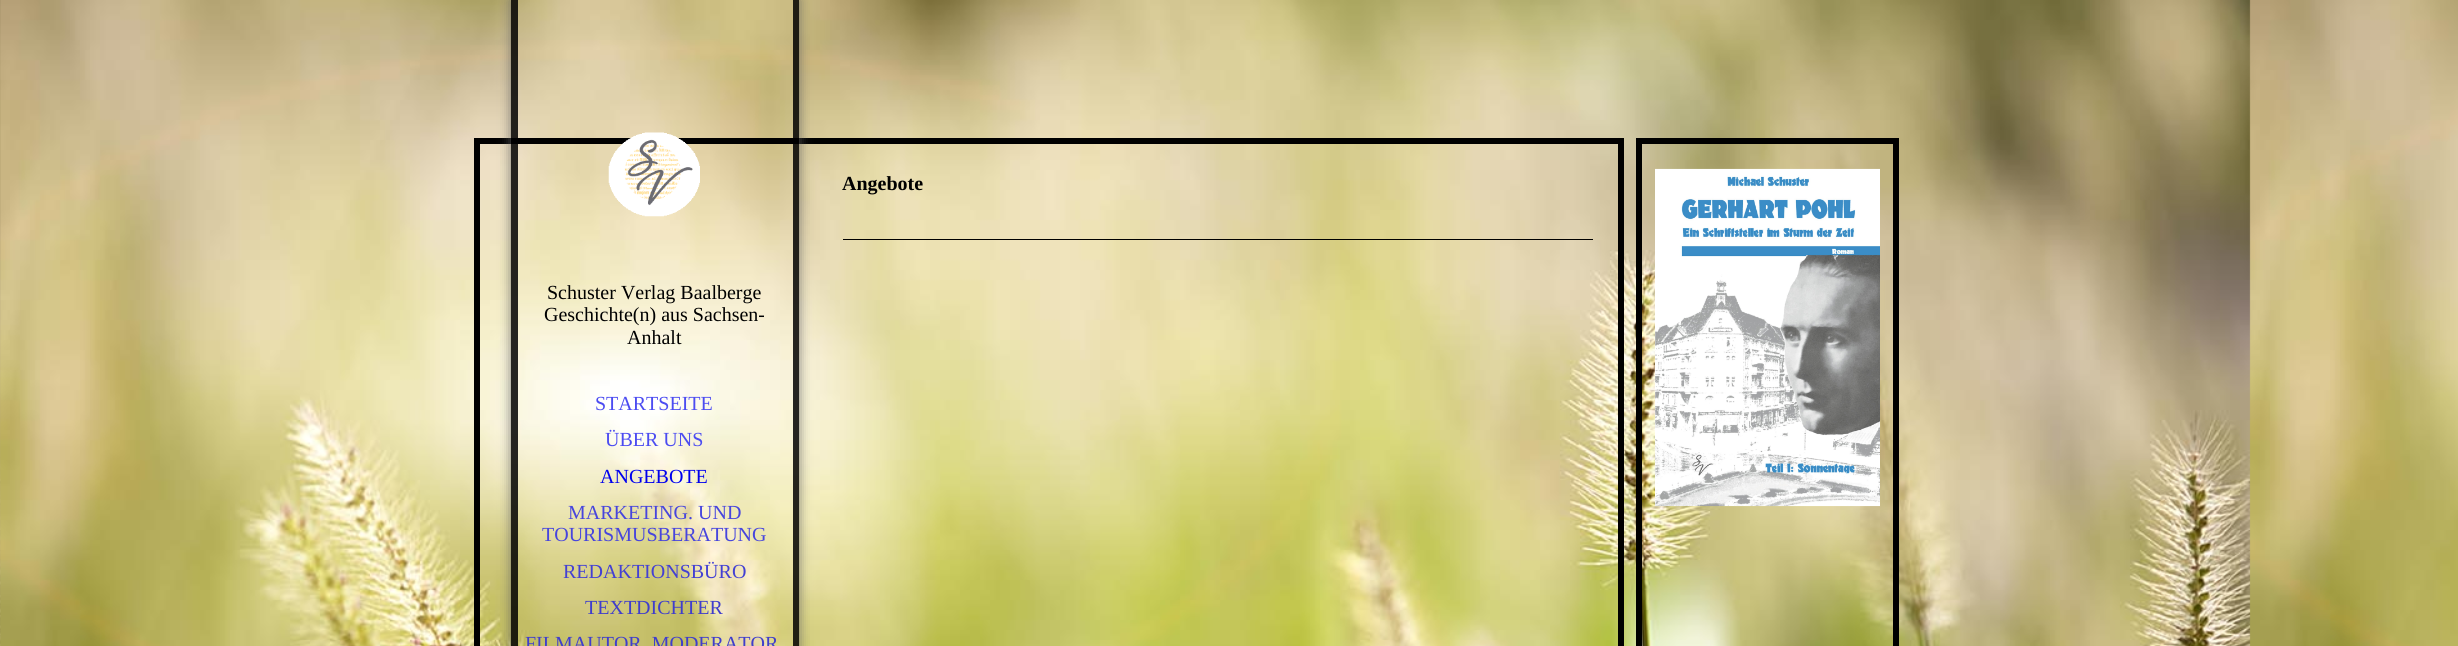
#include <cairo/cairo.h>
#include <math.h>
#include <stddef.h>

static cairo_t *cr;

static void use_color(int r, int g, int b) {
  cairo_set_source_rgb(cr, r / 255.0, g / 255.0, b / 255.0);
}

static void text(double x, double y, const char *s, const char *family, double size, int italic, int bold, int r, int g, int b) {
  cairo_select_font_face(cr, family, italic ? CAIRO_FONT_SLANT_ITALIC : CAIRO_FONT_SLANT_NORMAL,
    bold ? CAIRO_FONT_WEIGHT_BOLD : CAIRO_FONT_WEIGHT_NORMAL);
  cairo_set_font_size(cr, size);
  use_color(r, g, b);
  cairo_move_to(cr, x, y);
  cairo_show_text(cr, s);
}

static void box(double x, double y, double w, double h, int r, int g, int b) {
  use_color(r, g, b);
  cairo_rectangle(cr, x, y, w, h);
  cairo_fill(cr);
}

static void round_rect(double x, double y, double w, double h, double r) {
  cairo_new_sub_path(cr);
  cairo_arc(cr, x + w - r, y + h - r, r, 0, M_PI / 2);
  cairo_arc(cr, x + r, y + h - r, r, M_PI / 2, M_PI);
  cairo_arc(cr, x + r, y + r, r, M_PI, 1.5 * M_PI);
  cairo_arc(cr, x + w - r, y + r, r, 1.5 * M_PI, 2 * M_PI);
  cairo_close_path(cr);
}

static void shadow(double x, double y, double w, double h, double r, double blur, double alpha) {
  cairo_push_group_with_content(cr, CAIRO_CONTENT_ALPHA);
  cairo_set_operator(cr, CAIRO_OPERATOR_SOURCE);
  for (int i = 15; i >= -15 && fmin(w, h) + blur * i / 3 > 0; i -= 2) {
    double e = blur * i / 6;
    cairo_set_source_rgba(cr, 0, 0, 0, alpha * erfc((i - 1) / 8.5) / 2);
    round_rect(x - e, y - e, w + 2 * e, h + 2 * e, fmax(0, fmin(r + e + blur * .6, fmin(w, h) / 2 + e)));
    cairo_fill(cr);
  }
  cairo_pattern_t *soft = cairo_pop_group(cr);
  cairo_mask(cr, soft);
  cairo_pattern_destroy(soft);
}

static void picture(const char *path, double x, double y, double w, double h) {
  cairo_surface_t *image = cairo_image_surface_create_from_png(path);
  cairo_save(cr);
  cairo_set_source_surface(cr, image, x, y);
  cairo_rectangle(cr, x, y, w, h);
  cairo_fill(cr);
  cairo_restore(cr);
  cairo_surface_destroy(image);
}

static void draw(void) {
  use_color(255, 255, 255);
  cairo_paint(cr);
  picture("img_01.png", 0, 0, 2458, 646);
  cairo_rectangle(cr, 477, 141, 1144, 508);
  use_color(0, 0, 0);
  cairo_set_line_width(cr, 6);
  cairo_stroke(cr);
  cairo_save(cr);
  cairo_set_fill_rule(cr, CAIRO_FILL_RULE_EVEN_ODD);
  cairo_new_path(cr);
  cairo_move_to(cr, 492, 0);
  cairo_line_to(cr, 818, 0);
  cairo_line_to(cr, 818, 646);
  cairo_line_to(cr, 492, 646);
  cairo_close_path(cr);
  cairo_move_to(cr, 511, 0);
  cairo_line_to(cr, 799, 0);
  cairo_line_to(cr, 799, 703);
  cairo_line_to(cr, 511, 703);
  cairo_close_path(cr);
  cairo_clip(cr);
  use_color(102, 102, 102);
  shadow(511, 0, 288, 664, 0, 6, 0.85);
  cairo_restore(cr);
  cairo_set_source_rgba(cr, 0, 0, 0, 0.85);
  cairo_rectangle(cr, 793, 0, 6, 646);
  cairo_fill(cr);
  cairo_rectangle(cr, 511, 0, 7, 646);
  cairo_fill(cr);
  box(843, 239, 750, 1, 0, 0, 0);
  cairo_rectangle(cr, 1639, 141, 257, 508);
  cairo_stroke(cr);
  picture("img_02.png", 1655, 168, 225, 339);
  picture("img_03.png", 608, 132, 92, 85);
  text(842, 190, "Angebote", "Liberation Serif", 20, 0, 1, 0, 0, 0);
  text(547, 299, "Schuster Verlag Baalberge", "Liberation Serif", 20, 0, 0, 0, 0, 0);
  text(544, 321, "Geschichte(n) aus Sachsen-", "Liberation Serif", 20, 0, 0, 0, 0, 0);
  text(627, 344, "Anhalt", "Liberation Serif", 20, 0, 0, 0, 0, 0);
  text(595, 410, "STARTSEITE", "Liberation Serif", 20, 0, 0, 76, 76, 241);
  text(605, 446, "ÜBER UNS", "Liberation Serif", 20, 0, 0, 76, 76, 241);
  text(600, 483, "ANGEBOTE", "Liberation Serif", 20, 0, 0, 0, 0, 238);
  text(568, 519, "MARKETING. UND", "Liberation Serif", 20, 0, 0, 71, 69, 221);
  text(542, 541, "TOURISMUSBERATUNG", "Liberation Serif", 20, 0, 0, 71, 69, 221);
  text(563, 578, "REDAKTIONSBÜRO", "Liberation Serif", 20, 0, 0, 67, 64, 211);
  text(585, 614, "TEXTDICHTER", "Liberation Serif", 20, 0, 0, 63, 61, 204);
  text(525, 650, "FILMAUTOR, MODERATOR", "Liberation Serif", 20, 0, 0, 63, 61, 204);
}

int main(void) {
  cairo_surface_t *surface = cairo_image_surface_create(CAIRO_FORMAT_RGB24, 2458, 646);
  cr = cairo_create(surface);
  cairo_font_options_t *options = cairo_font_options_create();
  cairo_font_options_set_hint_metrics(options, CAIRO_HINT_METRICS_OFF);
  cairo_font_options_set_hint_style(options, CAIRO_HINT_STYLE_NONE);
  cairo_set_font_options(cr, options);
  cairo_set_miter_limit(cr, 4);
  draw();
  cairo_surface_write_to_png(surface, "out.png");
  cairo_font_options_destroy(options);
  cairo_destroy(cr);
  cairo_surface_destroy(surface);
  return 0;
}
